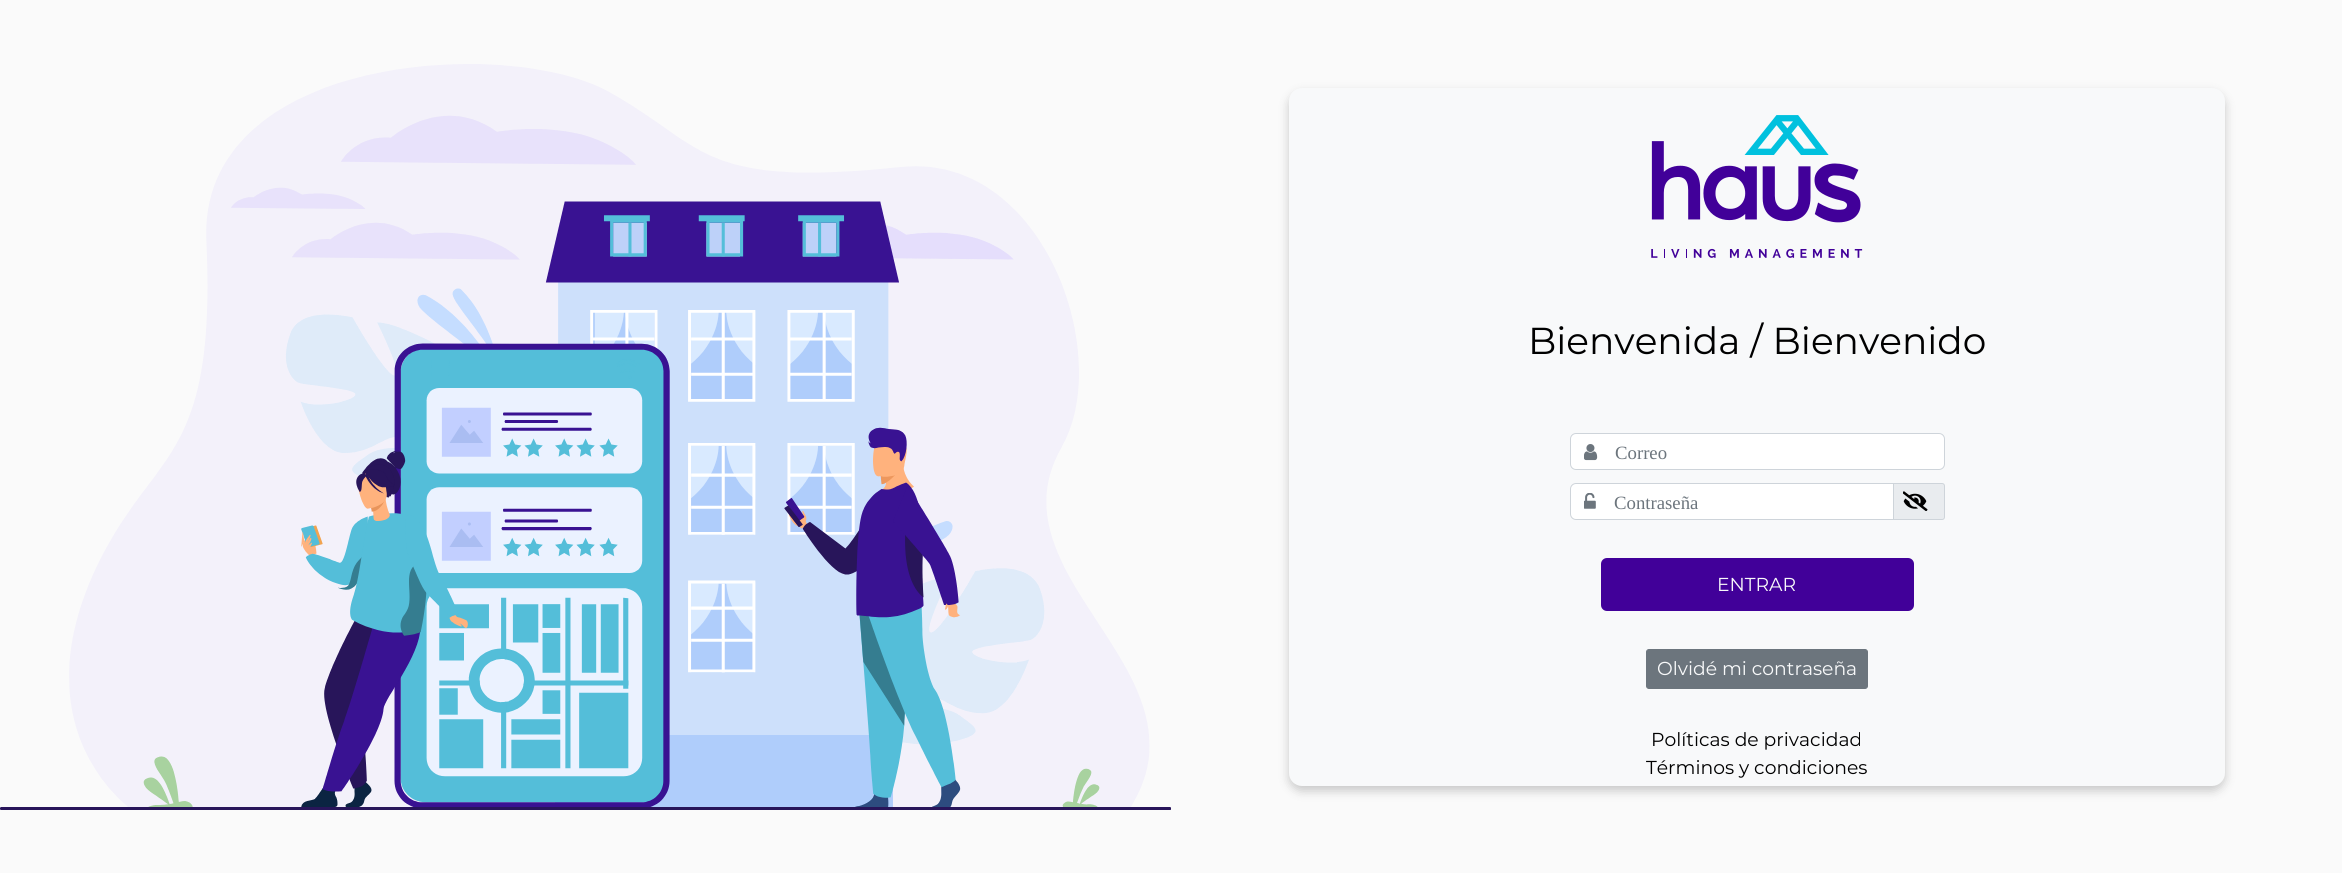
#include <cairo/cairo.h>
#include <math.h>
#include <stddef.h>

static cairo_t *cr;

static void use_color(int r, int g, int b) {
  cairo_set_source_rgb(cr, r / 255.0, g / 255.0, b / 255.0);
}

static void text(double x, double y, const char *s, const char *family, double size, int italic, int bold, int r, int g, int b) {
  cairo_select_font_face(cr, family, italic ? CAIRO_FONT_SLANT_ITALIC : CAIRO_FONT_SLANT_NORMAL,
    bold ? CAIRO_FONT_WEIGHT_BOLD : CAIRO_FONT_WEIGHT_NORMAL);
  cairo_set_font_size(cr, size);
  use_color(r, g, b);
  cairo_move_to(cr, x, y);
  cairo_show_text(cr, s);
}

static void round_rect(double x, double y, double w, double h, double r) {
  cairo_new_sub_path(cr);
  cairo_arc(cr, x + w - r, y + h - r, r, 0, M_PI / 2);
  cairo_arc(cr, x + r, y + h - r, r, M_PI / 2, M_PI);
  cairo_arc(cr, x + r, y + r, r, M_PI, 1.5 * M_PI);
  cairo_arc(cr, x + w - r, y + r, r, 1.5 * M_PI, 2 * M_PI);
  cairo_close_path(cr);
}

static void shadow(double x, double y, double w, double h, double r, double blur, double alpha) {
  cairo_push_group_with_content(cr, CAIRO_CONTENT_ALPHA);
  cairo_set_operator(cr, CAIRO_OPERATOR_SOURCE);
  for (int i = 15; i >= -15 && fmin(w, h) + blur * i / 3 > 0; i -= 2) {
    double e = blur * i / 6;
    cairo_set_source_rgba(cr, 0, 0, 0, alpha * erfc((i - 1) / 8.5) / 2);
    round_rect(x - e, y - e, w + 2 * e, h + 2 * e, fmax(0, fmin(r + e + blur * .6, fmin(w, h) / 2 + e)));
    cairo_fill(cr);
  }
  cairo_pattern_t *soft = cairo_pop_group(cr);
  cairo_mask(cr, soft);
  cairo_pattern_destroy(soft);
}

static void picture(const char *path, double x, double y, double w, double h) {
  cairo_surface_t *image = cairo_image_surface_create_from_png(path);
  cairo_save(cr);
  cairo_set_source_surface(cr, image, x, y);
  cairo_rectangle(cr, x, y, w, h);
  cairo_fill(cr);
  cairo_restore(cr);
  cairo_surface_destroy(image);
}

static void draw(void) {
  use_color(250, 250, 250);
  cairo_paint(cr);
  picture("img_01.png", 0, 64, 1171, 746);
  use_color(0, 0, 0);
  shadow(1289, 93, 936, 698, 13, 5, 0.2);
  use_color(248, 249, 250);
  round_rect(1289, 88, 936, 698, 13);
  cairo_fill(cr);
  picture("img_02.png", 1651, 115, 212, 143);
  use_color(255, 255, 255);
  round_rect(1570.5, 433.5, 374, 36, 5.5);
  cairo_fill_preserve(cr);
  use_color(206, 212, 218);
  cairo_set_line_width(cr, 1);
  cairo_stroke(cr);
  picture("img_03.png", 1584, 444, 14, 17);
  use_color(255, 255, 255);
  cairo_new_path(cr);
  cairo_move_to(cr, 1576, 483.5);
  cairo_line_to(cr, 1893.5, 483.5);
  cairo_line_to(cr, 1893.5, 519.5);
  cairo_line_to(cr, 1576, 519.5);
  cairo_curve_to(cr, 1573, 519.5, 1570.5, 517, 1570.5, 514);
  cairo_line_to(cr, 1570.5, 489);
  cairo_curve_to(cr, 1570.5, 486, 1573, 483.5, 1576, 483.5);
  cairo_close_path(cr);
  cairo_fill_preserve(cr);
  use_color(206, 212, 218);
  cairo_stroke(cr);
  picture("img_04.png", 1584, 493, 12, 16);
  use_color(233, 236, 239);
  cairo_new_path(cr);
  cairo_move_to(cr, 1893.5, 483.5);
  cairo_line_to(cr, 1942, 483.5);
  cairo_curve_to(cr, 1943.5, 483.5, 1944.5, 484.5, 1944.5, 486);
  cairo_line_to(cr, 1944.5, 517);
  cairo_curve_to(cr, 1944.5, 518.5, 1943.5, 519.5, 1942, 519.5);
  cairo_line_to(cr, 1893.5, 519.5);
  cairo_close_path(cr);
  cairo_fill_preserve(cr);
  use_color(206, 212, 218);
  cairo_stroke(cr);
  picture("img_05.png", 1903, 491, 25, 20);
  use_color(65, 0, 153);
  round_rect(1601, 558, 313, 53, 6);
  cairo_fill(cr);
  use_color(108, 117, 125);
  round_rect(1646.5, 649.5, 221, 39, 2.5);
  cairo_fill_preserve(cr);
  cairo_stroke(cr);
  text(1528, 354, "Bienvenida / Bienvenido", "Montserrat Thin", 37.5, 0, 0, 0, 0, 0);
  text(1615, 459, "Correo", "Liberation Serif", 18.75, 0, 0, 108, 117, 125);
  text(1614, 509, "Contraseña", "Liberation Serif", 18.75, 0, 0, 108, 117, 125);
  text(1717, 591, "ENTRAR", "Montserrat Thin", 18.75, 0, 0, 248, 249, 250);
  text(1657, 675, "Olvidé mi contraseña", "Montserrat Thin", 18.75, 0, 0, 248, 249, 250);
  text(1651, 746, "Políticas de privacidad", "Montserrat Thin", 18.75, 0, 0, 0, 0, 0);
  text(1646, 774, "Términos y condiciones", "Montserrat Thin", 18.75, 0, 0, 0, 0, 0);
}

int main(void) {
  cairo_surface_t *surface = cairo_image_surface_create(CAIRO_FORMAT_RGB24, 2342, 873);
  cr = cairo_create(surface);
  cairo_font_options_t *options = cairo_font_options_create();
  cairo_font_options_set_hint_metrics(options, CAIRO_HINT_METRICS_OFF);
  cairo_font_options_set_hint_style(options, CAIRO_HINT_STYLE_NONE);
  cairo_set_font_options(cr, options);
  cairo_set_miter_limit(cr, 4);
  draw();
  cairo_surface_write_to_png(surface, "out.png");
  cairo_font_options_destroy(options);
  cairo_destroy(cr);
  cairo_surface_destroy(surface);
  return 0;
}
